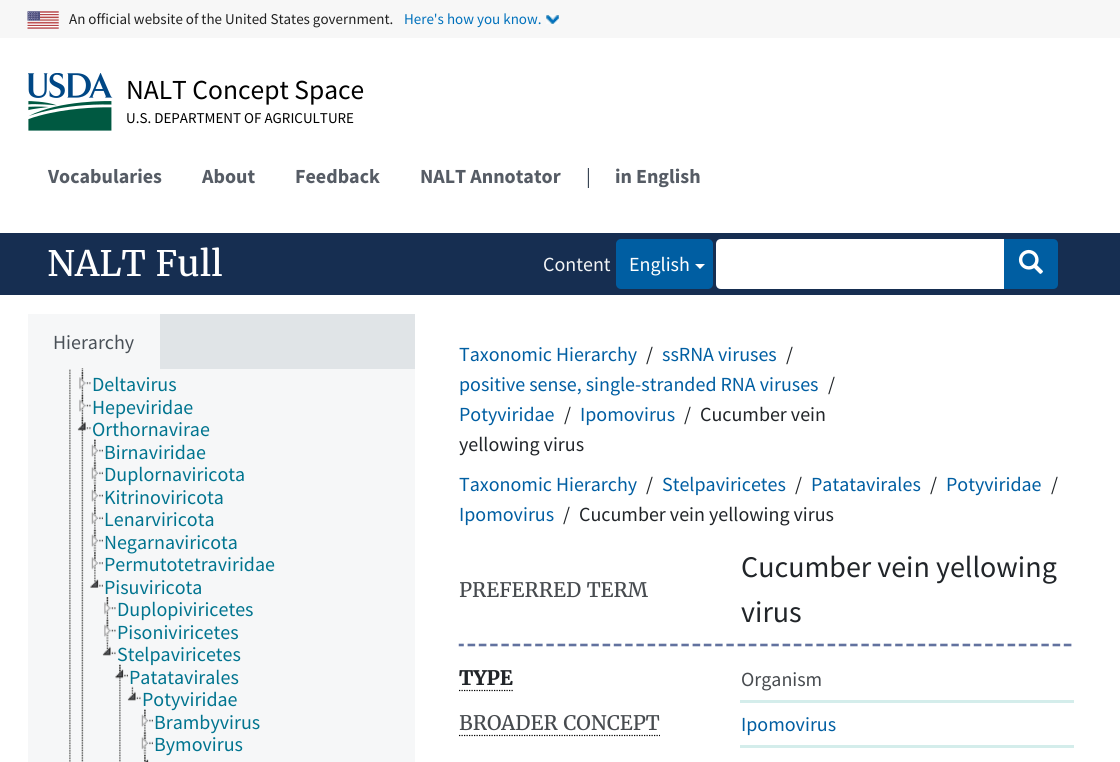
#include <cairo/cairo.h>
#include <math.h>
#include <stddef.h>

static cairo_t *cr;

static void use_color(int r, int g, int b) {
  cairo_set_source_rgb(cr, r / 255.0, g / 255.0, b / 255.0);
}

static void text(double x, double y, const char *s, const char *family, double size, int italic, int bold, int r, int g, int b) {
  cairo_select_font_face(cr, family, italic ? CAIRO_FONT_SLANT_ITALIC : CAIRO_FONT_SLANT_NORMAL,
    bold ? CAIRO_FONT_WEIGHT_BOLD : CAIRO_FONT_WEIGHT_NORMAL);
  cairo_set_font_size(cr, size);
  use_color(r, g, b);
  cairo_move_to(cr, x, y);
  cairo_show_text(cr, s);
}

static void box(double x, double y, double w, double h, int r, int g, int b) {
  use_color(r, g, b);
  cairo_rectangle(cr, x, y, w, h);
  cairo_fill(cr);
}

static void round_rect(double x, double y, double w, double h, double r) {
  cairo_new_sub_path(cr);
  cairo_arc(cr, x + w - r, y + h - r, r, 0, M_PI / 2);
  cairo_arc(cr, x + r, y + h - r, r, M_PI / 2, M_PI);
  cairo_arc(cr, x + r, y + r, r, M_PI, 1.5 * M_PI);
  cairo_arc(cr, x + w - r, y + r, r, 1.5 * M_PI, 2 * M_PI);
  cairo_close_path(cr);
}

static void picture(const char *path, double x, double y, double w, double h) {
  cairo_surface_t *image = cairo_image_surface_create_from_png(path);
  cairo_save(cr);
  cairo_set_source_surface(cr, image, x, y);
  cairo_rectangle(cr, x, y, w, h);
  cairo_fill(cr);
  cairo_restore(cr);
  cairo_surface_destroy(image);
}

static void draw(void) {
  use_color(255, 255, 255);
  cairo_paint(cr);
  box(0, 0, 1120, 38, 247, 247, 247);
  picture("img_01.png", 27, 11, 32, 18);
  picture("img_02.png", 546, 15, 13, 9);
  picture("img_03.png", 28, 73, 85, 58);
  box(0, 233, 1120, 62, 22, 46, 81);
  use_color(0, 94, 162);
  round_rect(616, 239, 97, 50, 5);
  cairo_fill(cr);
  use_color(255, 255, 255);
  cairo_new_path(cr);
  cairo_move_to(cr, 695, 264);
  cairo_line_to(cr, 705, 264);
  cairo_line_to(cr, 700, 269);
  cairo_close_path(cr);
  cairo_fill(cr);
  cairo_new_path(cr);
  cairo_move_to(cr, 721, 239);
  cairo_line_to(cr, 1005, 239);
  cairo_line_to(cr, 1005, 289);
  cairo_line_to(cr, 721, 289);
  cairo_curve_to(cr, 718, 289, 716, 287, 716, 284);
  cairo_line_to(cr, 716, 244);
  cairo_curve_to(cr, 716, 241, 718, 239, 721, 239);
  cairo_close_path(cr);
  cairo_fill(cr);
  use_color(0, 94, 162);
  cairo_new_path(cr);
  cairo_move_to(cr, 1004, 239);
  cairo_line_to(cr, 1053, 239);
  cairo_curve_to(cr, 1056, 239, 1058, 241, 1058, 244);
  cairo_line_to(cr, 1058, 284);
  cairo_curve_to(cr, 1058, 287, 1056, 289, 1053, 289);
  cairo_line_to(cr, 1004, 289);
  cairo_close_path(cr);
  cairo_fill(cr);
  picture("img_04.png", 1018, 249, 25, 25);
  box(160, 314, 255, 55, 224, 228, 231);
  box(28, 314, 132, 55, 246, 247, 248);
  box(28, 369, 387, 393, 246, 247, 248);
  picture("img_05.png", 69, 369, 2, 393);
  picture("img_06.png", 81, 368, 3, 5);
  picture("img_07.png", 81, 372, 3, 23);
  picture("img_08.png", 79, 372, 12, 18);
  picture("img_09.png", 81, 394, 3, 23);
  picture("img_10.png", 79, 394, 12, 18);
  picture("img_11.png", 81, 417, 3, 345);
  picture("img_12.png", 77, 417, 14, 14);
  picture("img_13.png", 94, 439, 2, 23);
  picture("img_14.png", 91, 439, 12, 18);
  picture("img_15.png", 93, 462, 4, 23);
  picture("img_16.png", 91, 461, 12, 19);
  picture("img_17.png", 94, 484, 2, 23);
  picture("img_18.png", 91, 484, 12, 18);
  picture("img_19.png", 94, 507, 2, 23);
  picture("img_20.png", 91, 506, 12, 19);
  picture("img_21.png", 93, 529, 4, 23);
  picture("img_22.png", 91, 529, 12, 18);
  picture("img_23.png", 94, 552, 2, 23);
  picture("img_24.png", 91, 552, 12, 18);
  picture("img_25.png", 90, 574, 13, 14);
  picture("img_26.png", 106, 597, 3, 23);
  picture("img_27.png", 104, 597, 12, 18);
  picture("img_28.png", 106, 619, 3, 23);
  picture("img_29.png", 104, 619, 12, 18);
  picture("img_30.png", 102, 641, 14, 15);
  picture("img_31.png", 119, 664, 2, 98);
  picture("img_33.png", 127, 686, 14, 15);
  picture("img_13.png", 144, 709, 2, 23);
  picture("img_15.png", 143, 732, 4, 23);
  picture("img_16.png", 141, 731, 12, 19);
  picture("img_34.png", 144, 754, 2, 8);
  picture("img_35.png", 144, 754, 5, 8);
  picture("img_36.png", 458, 643, 614, 4);
  cairo_new_path(cr);
  cairo_move_to(cr, 459, 690.5);
  cairo_line_to(cr, 514, 690.5);
  use_color(0, 0, 0);
  cairo_set_line_width(cr, 1.2);
  cairo_set_dash(cr, (double[]){1.25, 1.25}, 2, 0);
  cairo_stroke(cr);
  box(740, 700, 334, 3, 212, 237, 235);
  cairo_new_path(cr);
  cairo_move_to(cr, 459, 735.5);
  cairo_line_to(cr, 660, 735.5);
  use_color(0, 0, 0);
  cairo_stroke(cr);
  box(740, 745, 334, 3, 212, 237, 235);
  text(69, 24, "An official website of the United States government.", "Source Sans Pro", 15, 0, 0, 33, 33, 33);
  text(404, 24, "Here's how you know.", "Source Sans Pro", 15, 0, 0, 0, 113, 188);
  text(126, 99, "NALT Concept Space", "Source Sans Pro", 27.5, 0, 0, 0, 0, 0);
  text(126, 123, "U.S. DEPARTMENT OF AGRICULTURE", "Source Sans Pro", 15, 0, 0, 0, 0, 0);
  text(48, 183, "Vocabularies", "Source Sans Pro", 20, 0, 1, 86, 92, 101);
  text(202, 183, "About", "Source Sans Pro", 20, 0, 1, 86, 92, 101);
  text(295, 183, "Feedback", "Source Sans Pro", 20, 0, 1, 86, 92, 101);
  text(420, 183, "NALT Annotator", "Source Sans Pro", 20, 0, 1, 86, 92, 101);
  text(586, 183, "|", "Source Sans Pro", 20, 0, 0, 57, 69, 84);
  text(615, 183, "in English", "Source Sans Pro", 20, 0, 1, 86, 92, 101);
  text(47, 276, "NALT Full", "Merriweather", 35, 0, 0, 255, 255, 255);
  text(543, 271, "Content", "Source Sans Pro", 20, 0, 0, 243, 245, 246);
  text(629, 271, "English", "Source Sans Pro", 20, 0, 0, 255, 255, 255);
  text(53, 349, "Hierarchy", "Source Sans Pro", 20, 0, 0, 73, 80, 87);
  text(92, 391, "Deltavirus", "Source Sans Pro", 20, 0, 0, 0, 116, 143);
  text(92, 414, "Hepeviridae", "Source Sans Pro", 20, 0, 0, 0, 116, 143);
  text(92, 436, "Orthornavirae", "Source Sans Pro", 20, 0, 0, 0, 116, 143);
  text(104, 459, "Birnaviridae", "Source Sans Pro", 20, 0, 0, 0, 116, 143);
  text(104, 481, "Duplornaviricota", "Source Sans Pro", 20, 0, 0, 0, 116, 143);
  text(104, 504, "Kitrinoviricota", "Source Sans Pro", 20, 0, 0, 0, 116, 143);
  text(104, 526, "Lenarviricota", "Source Sans Pro", 20, 0, 0, 0, 116, 143);
  text(104, 549, "Negarnaviricota", "Source Sans Pro", 20, 0, 0, 0, 116, 143);
  text(104, 571, "Permutotetraviridae", "Source Sans Pro", 20, 0, 0, 0, 116, 143);
  text(104, 594, "Pisuviricota", "Source Sans Pro", 20, 0, 0, 0, 116, 143);
  text(117, 616, "Duplopiviricetes", "Source Sans Pro", 20, 0, 0, 0, 116, 143);
  text(117, 639, "Pisoniviricetes", "Source Sans Pro", 20, 0, 0, 0, 116, 143);
  text(117, 661, "Stelpaviricetes", "Source Sans Pro", 20, 0, 0, 0, 116, 143);
  picture("img_32.png", 115, 664, 13, 15);
  text(129, 684, "Patatavirales", "Source Sans Pro", 20, 0, 0, 0, 116, 143);
  text(142, 706, "Potyviridae", "Source Sans Pro", 20, 0, 0, 0, 116, 143);
  picture("img_14.png", 141, 709, 12, 18);
  text(154, 729, "Brambyvirus", "Source Sans Pro", 20, 0, 0, 0, 116, 143);
  text(154, 751, "Bymovirus", "Source Sans Pro", 20, 0, 0, 0, 116, 143);
  text(459, 361, "Taxonomic Hierarchy", "Source Sans Pro", 20, 0, 0, 0, 94, 162);
  text(646, 361, "/", "Source Sans Pro", 20, 0, 0, 33, 37, 41);
  text(662, 361, "ssRNA viruses", "Source Sans Pro", 20, 0, 0, 0, 94, 162);
  text(786, 361, "/", "Source Sans Pro", 20, 0, 0, 33, 37, 41);
  text(459, 391, "positive sense, single-stranded RNA viruses", "Source Sans Pro", 20, 0, 0, 0, 94, 162);
  text(828, 391, "/", "Source Sans Pro", 20, 0, 0, 33, 37, 41);
  text(459, 421, "Potyviridae", "Source Sans Pro", 20, 0, 0, 0, 94, 162);
  text(564, 421, "/", "Source Sans Pro", 20, 0, 0, 33, 37, 41);
  text(580, 421, "Ipomovirus", "Source Sans Pro", 20, 0, 0, 0, 94, 162);
  text(684, 421, "/", "Source Sans Pro", 20, 0, 0, 33, 37, 41);
  text(700, 421, "Cucumber vein", "Source Sans Pro", 20, 0, 0, 33, 37, 41);
  text(459, 451, "yellowing virus", "Source Sans Pro", 20, 0, 0, 33, 37, 41);
  text(459, 491, "Taxonomic Hierarchy", "Source Sans Pro", 20, 0, 0, 0, 94, 162);
  text(646, 491, "/", "Source Sans Pro", 20, 0, 0, 33, 37, 41);
  text(662, 491, "Stelpaviricetes", "Source Sans Pro", 20, 0, 0, 0, 94, 162);
  text(795, 491, "/", "Source Sans Pro", 20, 0, 0, 33, 37, 41);
  text(811, 491, "Patatavirales", "Source Sans Pro", 20, 0, 0, 0, 94, 162);
  text(930, 491, "/", "Source Sans Pro", 20, 0, 0, 33, 37, 41);
  text(946, 491, "Potyviridae", "Source Sans Pro", 20, 0, 0, 0, 94, 162);
  text(1051, 491, "/", "Source Sans Pro", 20, 0, 0, 33, 37, 41);
  text(459, 521, "Ipomovirus", "Source Sans Pro", 20, 0, 0, 0, 94, 162);
  text(563, 521, "/", "Source Sans Pro", 20, 0, 0, 33, 37, 41);
  text(579, 521, "Cucumber vein yellowing virus", "Source Sans Pro", 20, 0, 0, 33, 37, 41);
  text(459, 597, "PREFERRED TERM", "Merriweather", 20, 0, 0, 71, 75, 79);
  text(741, 577, "Cucumber vein yellowing", "Source Sans Pro", 30, 0, 0, 33, 37, 41);
  text(741, 622, "virus", "Source Sans Pro", 30, 0, 0, 33, 37, 41);
  text(459, 685, "TYPE", "Merriweather", 20, 0, 1, 33, 37, 41);
  text(741, 686, "Organism", "Source Sans Pro", 20, 0, 0, 71, 75, 79);
  text(459, 730, "BROADER CONCEPT", "Merriweather", 20, 0, 0, 71, 75, 79);
  text(741, 731, "Ipomovirus", "Source Sans Pro", 20, 0, 0, 0, 94, 162);
}

int main(void) {
  cairo_surface_t *surface = cairo_image_surface_create(CAIRO_FORMAT_RGB24, 1120, 762);
  cr = cairo_create(surface);
  cairo_font_options_t *options = cairo_font_options_create();
  cairo_font_options_set_hint_metrics(options, CAIRO_HINT_METRICS_OFF);
  cairo_font_options_set_hint_style(options, CAIRO_HINT_STYLE_NONE);
  cairo_set_font_options(cr, options);
  cairo_set_miter_limit(cr, 4);
  draw();
  cairo_surface_write_to_png(surface, "out.png");
  cairo_font_options_destroy(options);
  cairo_destroy(cr);
  cairo_surface_destroy(surface);
  return 0;
}
